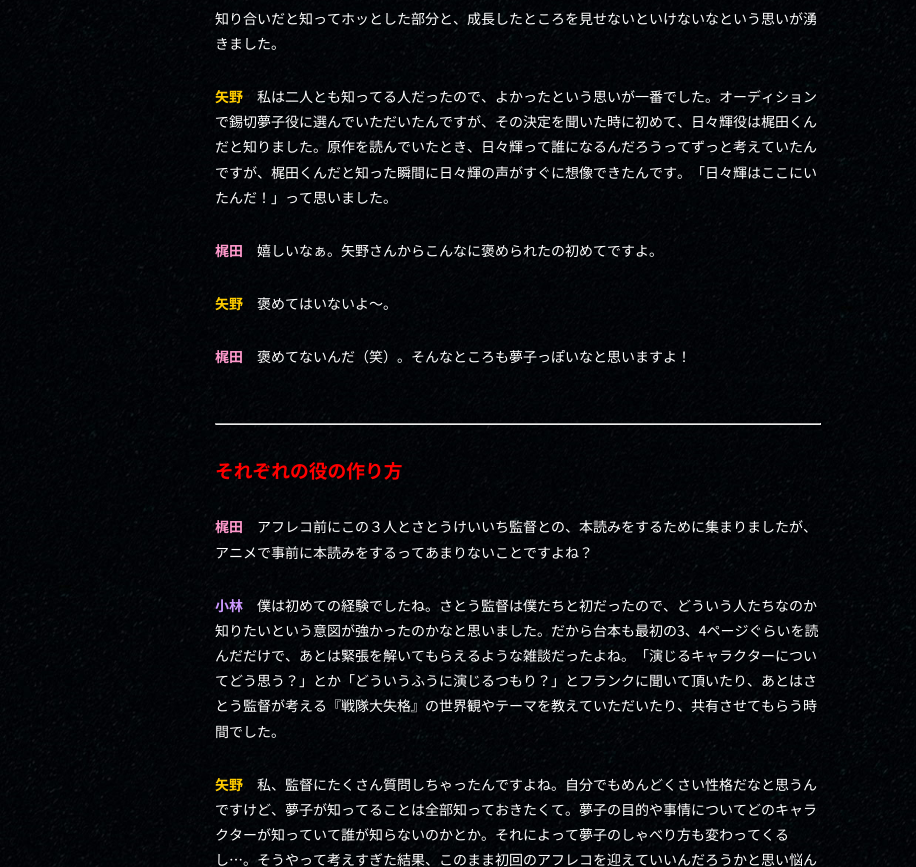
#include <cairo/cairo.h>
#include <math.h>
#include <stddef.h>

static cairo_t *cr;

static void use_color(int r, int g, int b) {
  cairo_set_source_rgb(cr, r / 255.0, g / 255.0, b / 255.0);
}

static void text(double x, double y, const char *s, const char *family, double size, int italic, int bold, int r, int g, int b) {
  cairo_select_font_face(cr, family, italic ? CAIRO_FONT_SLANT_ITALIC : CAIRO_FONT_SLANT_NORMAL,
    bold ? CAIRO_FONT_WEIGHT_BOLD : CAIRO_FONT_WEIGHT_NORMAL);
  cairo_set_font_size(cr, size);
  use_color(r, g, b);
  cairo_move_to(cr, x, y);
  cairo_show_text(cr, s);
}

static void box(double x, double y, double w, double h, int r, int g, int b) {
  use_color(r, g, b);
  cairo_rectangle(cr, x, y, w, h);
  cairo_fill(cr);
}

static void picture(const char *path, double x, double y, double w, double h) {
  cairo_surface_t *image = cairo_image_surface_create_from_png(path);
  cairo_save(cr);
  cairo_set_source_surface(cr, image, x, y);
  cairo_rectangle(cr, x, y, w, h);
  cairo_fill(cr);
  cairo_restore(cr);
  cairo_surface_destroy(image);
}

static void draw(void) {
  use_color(255, 255, 255);
  cairo_paint(cr);
  picture("img_01.png", 0, 0, 916, 867);
  box(215, 423, 606, 1, 159, 159, 159);
  box(820, 423, 1, 2, 238, 238, 238);
  box(215, 424, 606, 1, 238, 238, 238);
  box(215, 423, 1, 2, 159, 159, 159);
  text(215, 24, "知り合いだと知ってホッとした部分と、成長したところを見せないといけないなという思いが湧", "Noto Sans JP", 14, 0, 0, 255, 255, 255);
  text(215, 49, "きました。", "Noto Sans JP", 14, 0, 0, 255, 255, 255);
  text(215, 102, "矢野", "Noto Sans JP", 14, 0, 1, 255, 204, 0);
  text(257, 102, "私は二人とも知ってる人だったので、よかったという思いが一番でした。オーディション", "Noto Sans JP", 14, 0, 0, 255, 255, 255);
  text(215, 127, "で錫切夢子役に選んでいただいたんですが、その決定を聞いた時に初めて、日々輝役は梶田くん", "Noto Sans JP", 14, 0, 0, 255, 255, 255);
  text(215, 152, "だと知りました。原作を読んでいたとき、日々輝って誰になるんだろうってずっと考えていたん", "Noto Sans JP", 14, 0, 0, 255, 255, 255);
  text(215, 178, "ですが、梶田くんだと知った瞬間に日々輝の声がすぐに想像できたんです。「日々輝はここにい", "Noto Sans JP", 14, 0, 0, 255, 255, 255);
  text(215, 203, "たんだ！」って思いました。", "Noto Sans JP", 14, 0, 0, 255, 255, 255);
  text(215, 256, "梶田", "Noto Sans JP", 14, 0, 1, 255, 153, 204);
  text(257, 256, "嬉しいなぁ。矢野さんからこんなに褒められたの初めてですよ。", "Noto Sans JP", 14, 0, 0, 255, 255, 255);
  text(215, 309, "矢野", "Noto Sans JP", 14, 0, 1, 255, 204, 0);
  text(257, 309, "褒めてはいないよ〜。", "Noto Sans JP", 14, 0, 0, 255, 255, 255);
  text(215, 362, "梶田", "Noto Sans JP", 14, 0, 1, 255, 153, 204);
  text(257, 362, "褒めてないんだ（笑）。そんなところも夢子っぽいなと思いますよ！", "Noto Sans JP", 14, 0, 0, 255, 255, 255);
  text(215, 478, "それぞれの役の作り方", "Noto Sans JP", 18.75, 0, 1, 255, 0, 0);
  text(215, 532, "梶田", "Noto Sans JP", 14, 0, 1, 255, 153, 204);
  text(257, 532, "アフレコ前にこの３人とさとうけいいち監督との、本読みをするために集まりましたが、", "Noto Sans JP", 14, 0, 0, 255, 255, 255);
  text(215, 558, "アニメで事前に本読みをするってあまりないことですよね？", "Noto Sans JP", 14, 0, 0, 255, 255, 255);
  text(215, 611, "小林", "Noto Sans JP", 14, 0, 1, 204, 153, 255);
  text(257, 611, "僕は初めての経験でしたね。さとう監督は僕たちと初だったので、どういう人たちなのか", "Noto Sans JP", 14, 0, 0, 255, 255, 255);
  text(215, 636, "知りたいという意図が強かったのかなと思いました。だから台本も最初の3、4ページぐらいを読", "Noto Sans JP", 14, 0, 0, 255, 255, 255);
  text(215, 661, "んだだけで、あとは緊張を解いてもらえるような雑談だったよね。「演じるキャラクターについ", "Noto Sans JP", 14, 0, 0, 255, 255, 255);
  text(215, 686, "てどう思う？」とか「どういうふうに演じるつもり？」とフランクに聞いて頂いたり、あとはさ", "Noto Sans JP", 14, 0, 0, 255, 255, 255);
  text(215, 711, "とう監督が考える『戦隊大失格』の世界観やテーマを教えていただいたり、共有させてもらう時", "Noto Sans JP", 14, 0, 0, 255, 255, 255);
  text(215, 737, "間でした。", "Noto Sans JP", 14, 0, 0, 255, 255, 255);
  text(215, 790, "矢野", "Noto Sans JP", 14, 0, 1, 255, 204, 0);
  text(257, 790, "私、監督にたくさん質問しちゃったんですよね。自分でもめんどくさい性格だなと思うん", "Noto Sans JP", 14, 0, 0, 255, 255, 255);
  text(215, 815, "ですけど、夢子が知ってることは全部知っておきたくて。夢子の目的や事情についてどのキャラ", "Noto Sans JP", 14, 0, 0, 255, 255, 255);
  text(215, 840, "クターが知っていて誰が知らないのかとか。それによって夢子のしゃべり方も変わってくる", "Noto Sans JP", 14, 0, 0, 255, 255, 255);
  text(215, 865, "し…。そうやって考えすぎた結果、このまま初回のアフレコを迎えていいんだろうかと思い悩ん", "Noto Sans JP", 14, 0, 0, 255, 255, 255);
}

int main(void) {
  cairo_surface_t *surface = cairo_image_surface_create(CAIRO_FORMAT_RGB24, 916, 867);
  cr = cairo_create(surface);
  cairo_font_options_t *options = cairo_font_options_create();
  cairo_font_options_set_hint_metrics(options, CAIRO_HINT_METRICS_OFF);
  cairo_font_options_set_hint_style(options, CAIRO_HINT_STYLE_NONE);
  cairo_set_font_options(cr, options);
  cairo_set_miter_limit(cr, 4);
  draw();
  cairo_surface_write_to_png(surface, "out.png");
  cairo_font_options_destroy(options);
  cairo_destroy(cr);
  cairo_surface_destroy(surface);
  return 0;
}
